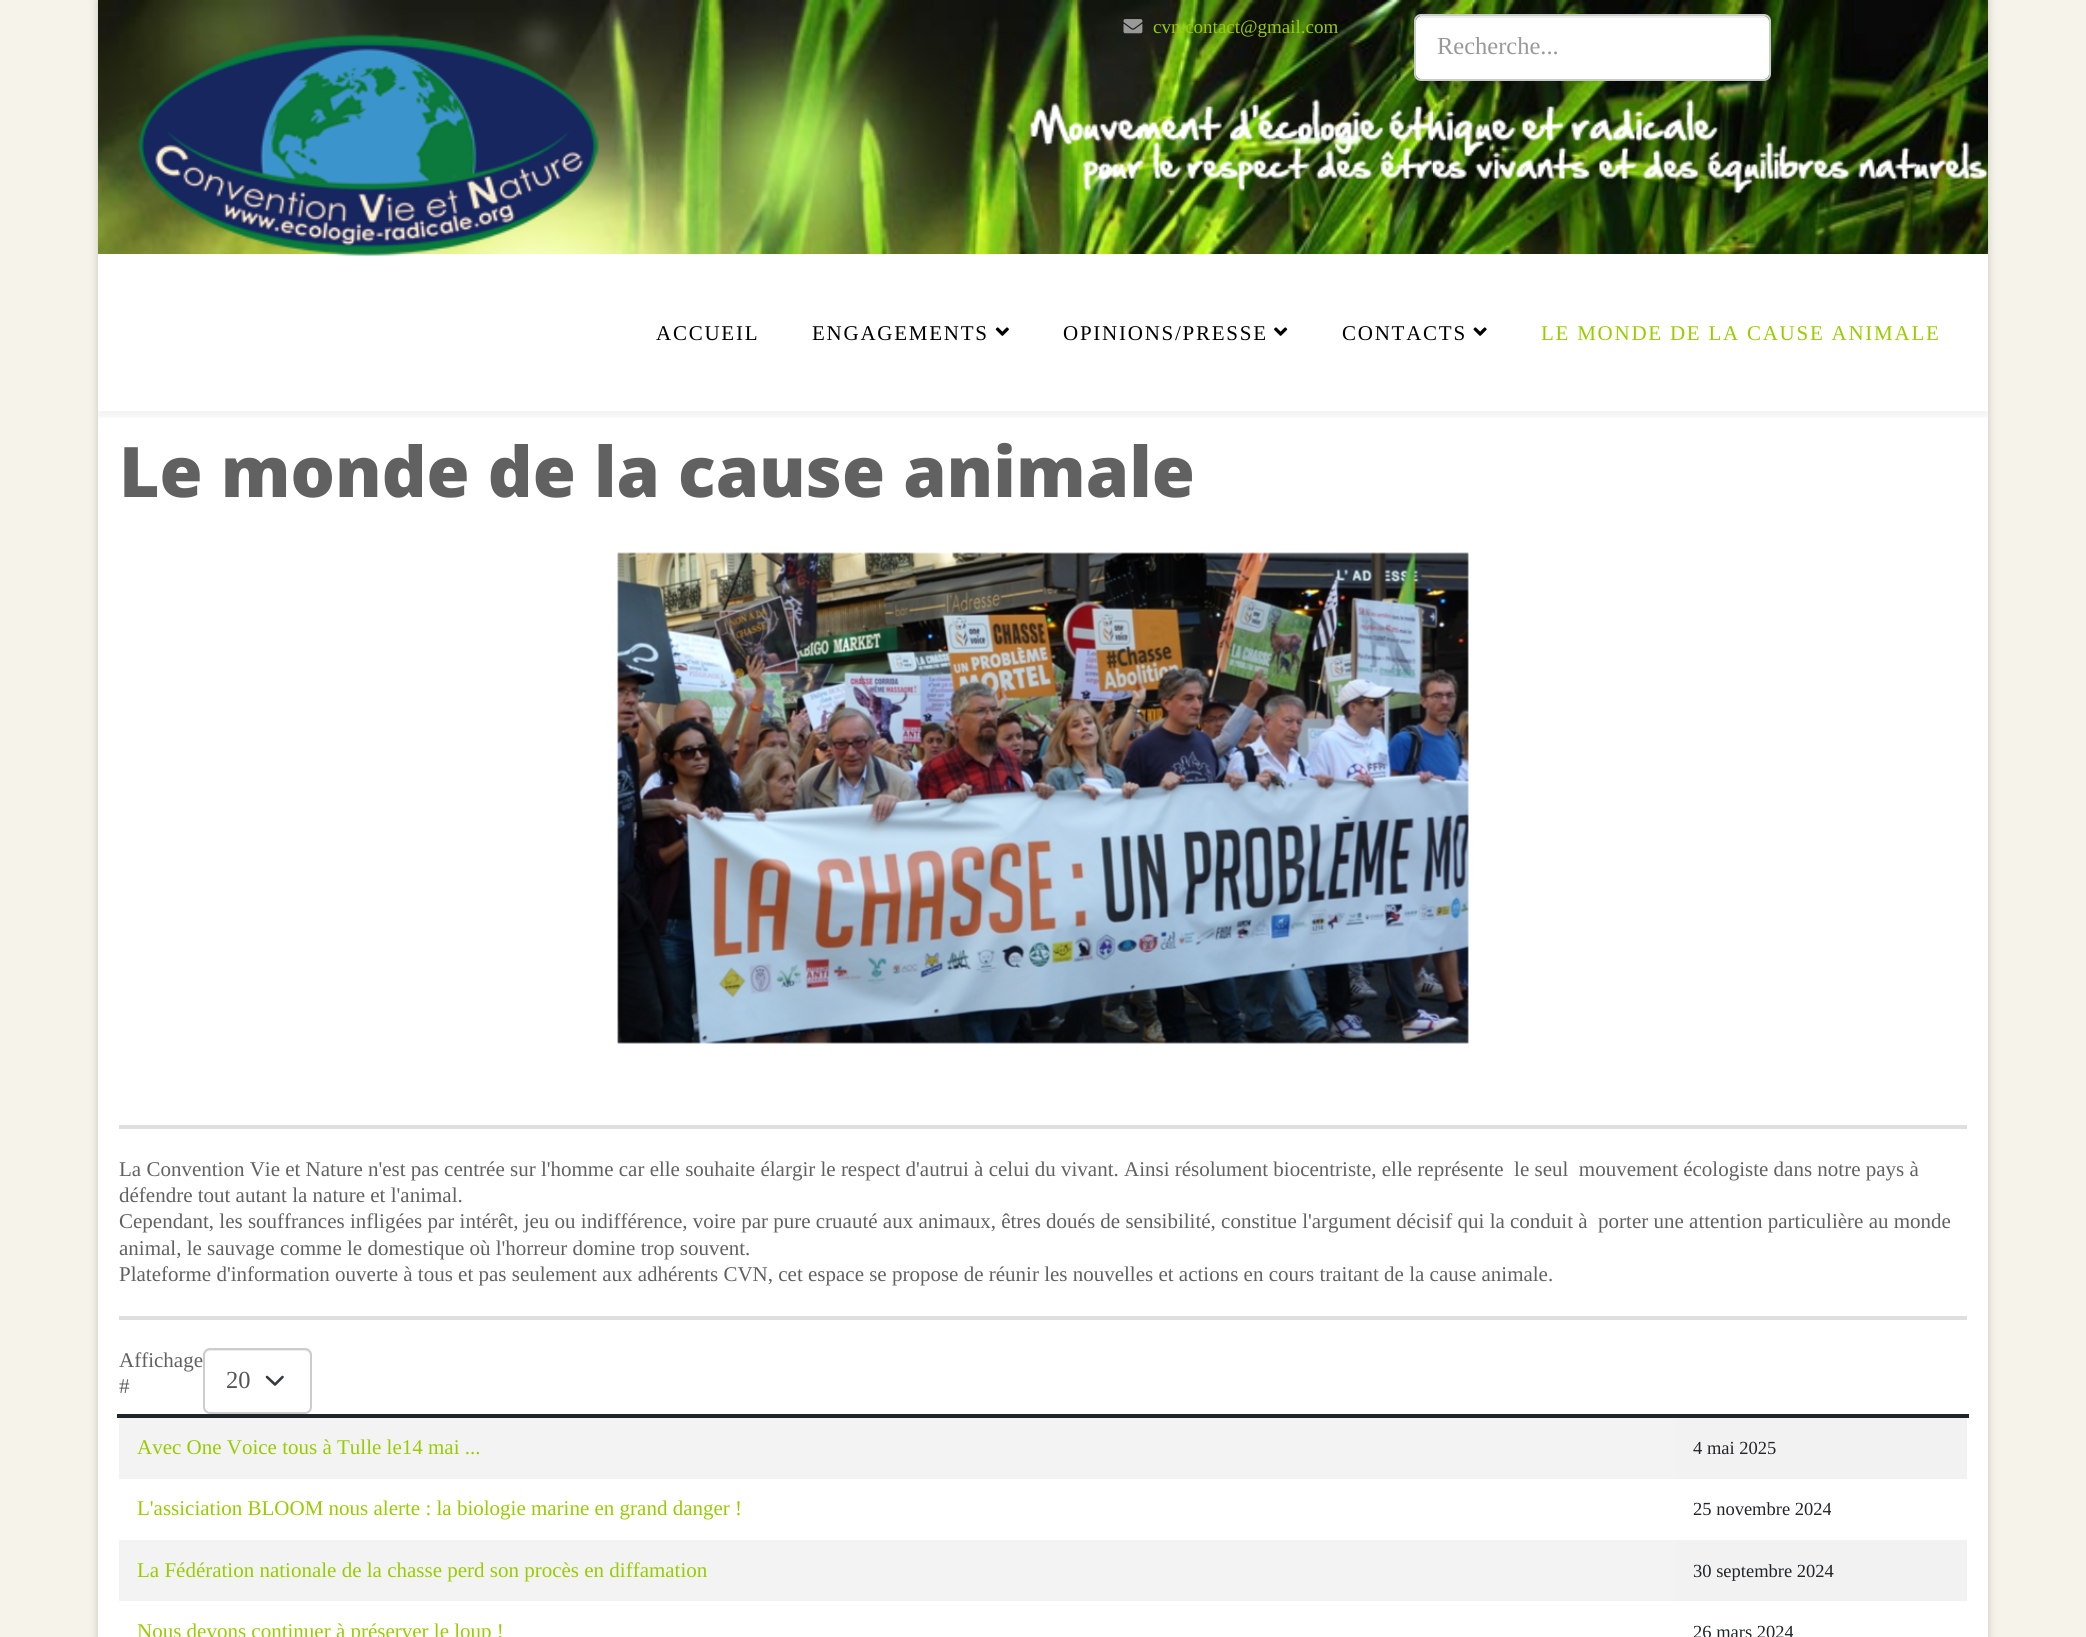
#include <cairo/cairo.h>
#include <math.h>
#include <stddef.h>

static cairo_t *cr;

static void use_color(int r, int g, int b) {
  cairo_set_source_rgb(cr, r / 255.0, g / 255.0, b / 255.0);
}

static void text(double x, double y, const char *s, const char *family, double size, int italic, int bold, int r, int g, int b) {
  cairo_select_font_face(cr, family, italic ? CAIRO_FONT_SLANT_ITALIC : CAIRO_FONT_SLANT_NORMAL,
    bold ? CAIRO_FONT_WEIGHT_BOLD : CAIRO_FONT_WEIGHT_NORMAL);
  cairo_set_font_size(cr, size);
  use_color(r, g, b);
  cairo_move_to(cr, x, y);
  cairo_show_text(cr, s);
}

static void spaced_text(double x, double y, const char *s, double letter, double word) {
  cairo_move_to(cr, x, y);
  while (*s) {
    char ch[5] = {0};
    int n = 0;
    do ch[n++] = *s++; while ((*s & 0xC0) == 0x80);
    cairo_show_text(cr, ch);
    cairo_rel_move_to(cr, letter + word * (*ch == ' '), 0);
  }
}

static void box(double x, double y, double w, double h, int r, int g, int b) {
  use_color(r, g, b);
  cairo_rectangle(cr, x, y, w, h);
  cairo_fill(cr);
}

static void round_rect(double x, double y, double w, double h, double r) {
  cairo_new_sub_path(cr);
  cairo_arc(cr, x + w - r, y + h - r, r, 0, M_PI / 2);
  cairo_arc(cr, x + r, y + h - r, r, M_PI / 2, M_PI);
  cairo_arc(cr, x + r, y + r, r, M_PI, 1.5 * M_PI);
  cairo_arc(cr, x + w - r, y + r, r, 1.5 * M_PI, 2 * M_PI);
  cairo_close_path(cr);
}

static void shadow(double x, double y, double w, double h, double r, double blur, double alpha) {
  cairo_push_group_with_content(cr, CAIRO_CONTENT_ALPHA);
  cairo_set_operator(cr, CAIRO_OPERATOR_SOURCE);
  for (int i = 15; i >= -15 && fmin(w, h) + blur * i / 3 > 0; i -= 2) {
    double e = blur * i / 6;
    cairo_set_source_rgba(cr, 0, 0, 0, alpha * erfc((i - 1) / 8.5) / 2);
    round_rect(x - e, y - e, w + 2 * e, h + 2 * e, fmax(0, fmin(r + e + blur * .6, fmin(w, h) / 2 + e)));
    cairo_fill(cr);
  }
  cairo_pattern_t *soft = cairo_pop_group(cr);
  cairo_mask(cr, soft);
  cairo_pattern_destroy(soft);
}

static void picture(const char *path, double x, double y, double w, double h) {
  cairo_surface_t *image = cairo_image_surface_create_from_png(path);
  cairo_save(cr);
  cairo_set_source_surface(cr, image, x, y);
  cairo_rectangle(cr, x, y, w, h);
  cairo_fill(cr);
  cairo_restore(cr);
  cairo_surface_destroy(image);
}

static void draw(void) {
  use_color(246, 244, 234);
  cairo_paint(cr);
  use_color(0, 0, 0);
  shadow(98, 0, 1890, 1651, 0, 4.5, 0.2);
  box(98, 254, 1890, 1383, 255, 255, 255);
  picture("img_01.png", 98, 0, 1890, 254);
  picture("img_02.png", 1030, 99, 958, 96);
  picture("img_03.png", 1123, 19, 20, 15);
  cairo_save(cr);
  cairo_rectangle(cr, 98, 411, 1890, 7);
  cairo_clip(cr);
  use_color(0, 0, 0);
  shadow(98, 259, 1890, 158, 0, 2.5, 0.05);
  cairo_restore(cr);
  picture("img_04.png", 138, 34, 461, 222);
  round_rect(1416, 16, 353, 63, 5);
  cairo_fill(cr);
  cairo_set_source_rgba(cr, 0, 0, 0, 0.07);
  cairo_new_path(cr);
  cairo_move_to(cr, 1421, 18);
  cairo_line_to(cr, 1764, 18);
  cairo_curve_to(cr, 1767, 18, 1769, 20, 1769, 23);
  cairo_curve_to(cr, 1769, 20, 1768, 16, 1764, 16);
  cairo_line_to(cr, 1421, 16);
  cairo_curve_to(cr, 1417, 16, 1416, 20, 1416, 23);
  cairo_curve_to(cr, 1416, 20, 1418, 18, 1421, 18);
  cairo_close_path(cr);
  cairo_fill(cr);
  round_rect(1415, 15, 355, 65, 6);
  use_color(204, 204, 204);
  cairo_stroke(cr);
  picture("img_05.png", 995, 327, 14, 9);
  picture("img_06.png", 1274, 327, 14, 9);
  picture("img_07.png", 1473, 327, 14, 9);
  picture("img_08.png", 617, 552, 852, 492);
  box(119, 1125, 1848, 4, 223, 223, 223);
  box(119, 1316, 1848, 4, 223, 223, 223);
  cairo_new_path(cr);
  cairo_move_to(cr, 267, 1377);
  cairo_line_to(cr, 275, 1384.5);
  cairo_line_to(cr, 282.5, 1377);
  use_color(52, 58, 64);
  cairo_set_line_width(cr, 2.6);
  cairo_set_line_cap(cr, CAIRO_LINE_CAP_ROUND);
  cairo_set_line_join(cr, CAIRO_LINE_JOIN_ROUND);
  cairo_stroke(cr);
  use_color(236, 236, 236);
  cairo_new_path(cr);
  cairo_move_to(cr, 210, 1351);
  cairo_line_to(cr, 304, 1351);
  cairo_curve_to(cr, 307, 1351, 310, 1353, 310, 1356);
  cairo_line_to(cr, 310, 1354);
  cairo_curve_to(cr, 310, 1351, 308, 1349, 305, 1349);
  cairo_line_to(cr, 210, 1349);
  cairo_curve_to(cr, 207, 1349, 205, 1351, 205, 1354);
  cairo_line_to(cr, 205, 1356);
  cairo_curve_to(cr, 205, 1353, 207, 1351, 210, 1351);
  cairo_close_path(cr);
  cairo_fill(cr);
  round_rect(204, 1349, 107, 64, 6);
  use_color(204, 204, 204);
  cairo_set_line_width(cr, 2);
  cairo_set_line_cap(cr, CAIRO_LINE_CAP_BUTT);
  cairo_set_line_join(cr, CAIRO_LINE_JOIN_MITER);
  cairo_stroke(cr);
  box(117, 1414, 1852, 4, 33, 37, 41);
  box(119, 1418, 1556, 61, 243, 243, 243);
  box(1675, 1418, 292, 61, 242, 242, 242);
  box(119, 1540, 1556, 61, 243, 243, 243);
  box(1675, 1540, 292, 61, 242, 242, 242);
  text(1153, 33, "cvn.contact@gmail.com", "Liberation Serif", 19, 0, 0, 153, 204, 0);
  text(1437, 54, "Recherche...", "Liberation Serif", 24.5, 0, 0, 153, 153, 153);
  cairo_set_font_size(cr, 21);
  use_color(0, 0, 0);
  spaced_text(656, 340, "ACCUEIL", 1.75, 0);
  spaced_text(812, 340, "ENGAGEMENTS", 1.75, 0);
  spaced_text(1063, 340, "OPINIONS/PRESSE", 1.75, 0);
  spaced_text(1342, 340, "CONTACTS", 1.75, 0);
  use_color(153, 204, 0);
  spaced_text(1541, 340, "LE MONDE DE LA CAUSE ANIMALE", 1.75, 0);
  text(119, 497, "Le monde de la cause animale", "Open Sans ExtraBold", 69.75, 0, 0, 97, 97, 97);
  text(119, 1176, "La Convention Vie et Nature n'est pas centrée sur l'homme car elle souhaite élargir le respect d'autrui à celui du vivant. Ainsi résolument biocentriste, elle représente  le seul  mouvement écologiste dans notre pays à", "Liberation Serif", 21, 0, 0, 97, 97, 97);
  text(119, 1202, "défendre tout autant la nature et l'animal.", "Liberation Serif", 21, 0, 0, 97, 97, 97);
  text(119, 1228, "Cependant, les souffrances infligées par intérêt, jeu ou indifférence, voire par pure cruauté aux animaux, êtres doués de sensibilité, constitue l'argument décisif qui la conduit à  porter une attention particulière au monde", "Liberation Serif", 21, 0, 0, 97, 97, 97);
  text(119, 1255, "animal, le sauvage comme le domestique où l'horreur domine trop souvent.", "Liberation Serif", 21, 0, 0, 97, 97, 97);
  text(119, 1281, "Plateforme d'information ouverte à tous et pas seulement aux adhérents CVN, cet espace se propose de réunir les nouvelles et actions en cours traitant de la cause animale.", "Liberation Serif", 21, 0, 0, 97, 97, 97);
  text(119, 1367, "Affichage", "Liberation Serif", 21, 0, 0, 97, 97, 97);
  text(119, 1393, "#", "Liberation Serif", 21, 0, 0, 97, 97, 97);
  text(226, 1388, "20", "Liberation Serif", 24.5, 0, 0, 85, 85, 85);
  text(137, 1454, "Avec One Voice tous à Tulle le14 mai ...", "Liberation Serif", 21, 0, 0, 153, 204, 0);
  text(1693, 1454, "4 mai 2025", "Liberation Serif", 18.5, 0, 0, 33, 37, 41);
  text(137, 1515, "L'assiciation BLOOM nous alerte : la biologie marine en grand danger !", "Liberation Serif", 21, 0, 0, 153, 204, 0);
  text(1693, 1515, "25 novembre 2024", "Liberation Serif", 18.5, 0, 0, 33, 37, 41);
  text(137, 1577, "La Fédération nationale de la chasse perd son procès en diffamation", "Liberation Serif", 21, 0, 0, 153, 204, 0);
  text(1693, 1577, "30 septembre 2024", "Liberation Serif", 18.5, 0, 0, 33, 37, 41);
  text(137, 1638, "Nous devons continuer à préserver le loup !", "Liberation Serif", 21, 0, 0, 153, 204, 0);
  text(1693, 1638, "26 mars 2024", "Liberation Serif", 18.5, 0, 0, 33, 37, 41);
}

int main(void) {
  cairo_surface_t *surface = cairo_image_surface_create(CAIRO_FORMAT_RGB24, 2086, 1637);
  cr = cairo_create(surface);
  cairo_font_options_t *options = cairo_font_options_create();
  cairo_font_options_set_hint_metrics(options, CAIRO_HINT_METRICS_OFF);
  cairo_font_options_set_hint_style(options, CAIRO_HINT_STYLE_NONE);
  cairo_set_font_options(cr, options);
  cairo_set_miter_limit(cr, 4);
  draw();
  cairo_surface_write_to_png(surface, "out.png");
  cairo_font_options_destroy(options);
  cairo_destroy(cr);
  cairo_surface_destroy(surface);
  return 0;
}
